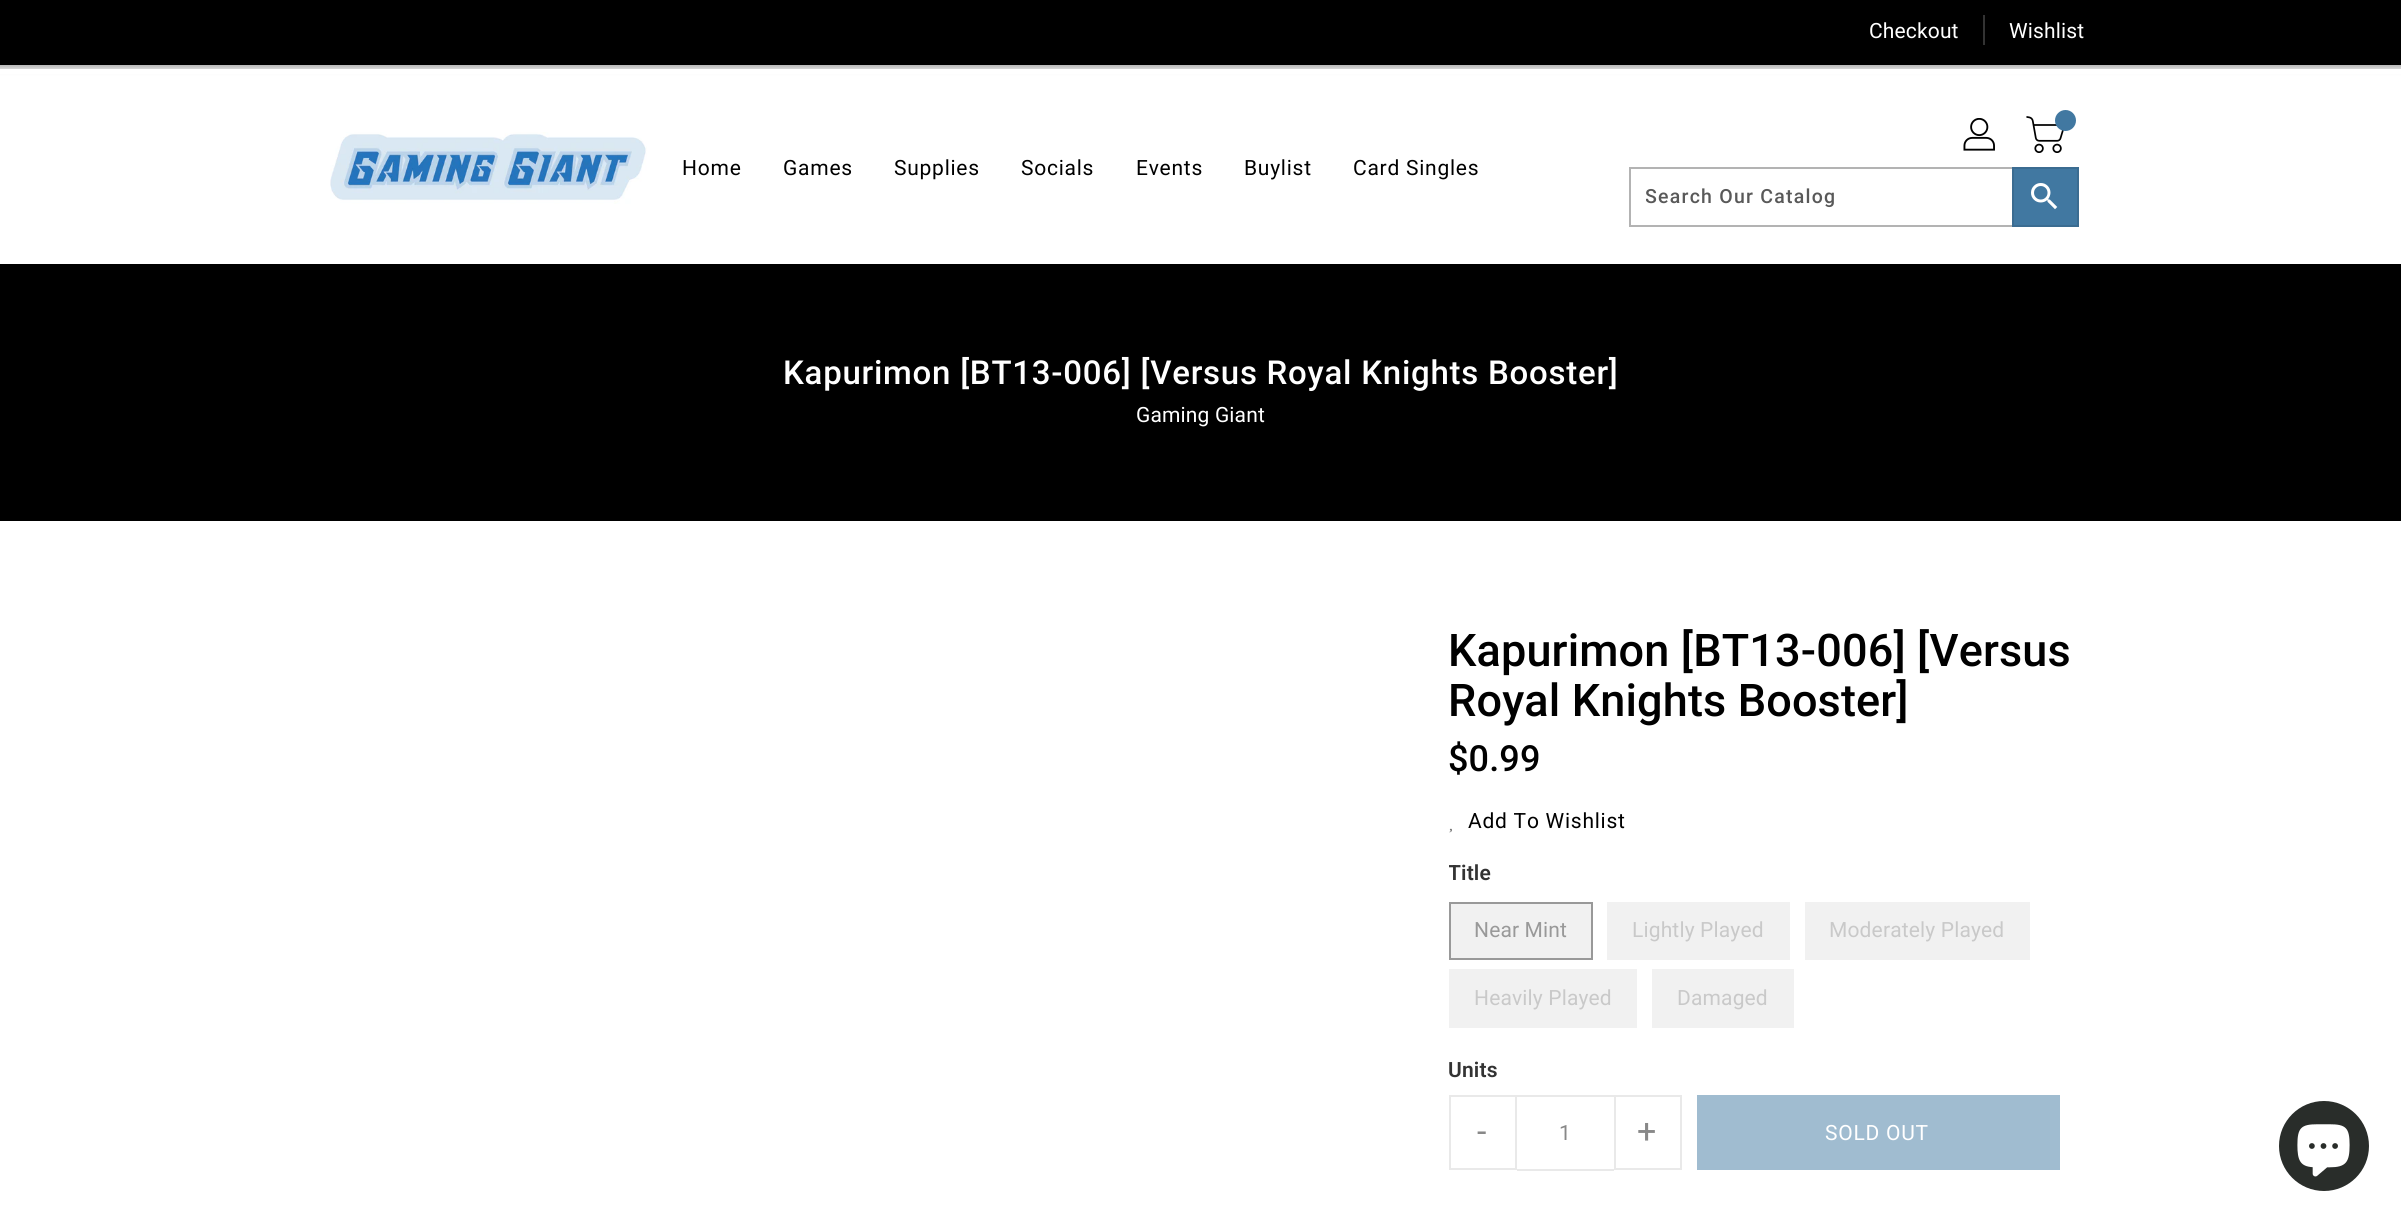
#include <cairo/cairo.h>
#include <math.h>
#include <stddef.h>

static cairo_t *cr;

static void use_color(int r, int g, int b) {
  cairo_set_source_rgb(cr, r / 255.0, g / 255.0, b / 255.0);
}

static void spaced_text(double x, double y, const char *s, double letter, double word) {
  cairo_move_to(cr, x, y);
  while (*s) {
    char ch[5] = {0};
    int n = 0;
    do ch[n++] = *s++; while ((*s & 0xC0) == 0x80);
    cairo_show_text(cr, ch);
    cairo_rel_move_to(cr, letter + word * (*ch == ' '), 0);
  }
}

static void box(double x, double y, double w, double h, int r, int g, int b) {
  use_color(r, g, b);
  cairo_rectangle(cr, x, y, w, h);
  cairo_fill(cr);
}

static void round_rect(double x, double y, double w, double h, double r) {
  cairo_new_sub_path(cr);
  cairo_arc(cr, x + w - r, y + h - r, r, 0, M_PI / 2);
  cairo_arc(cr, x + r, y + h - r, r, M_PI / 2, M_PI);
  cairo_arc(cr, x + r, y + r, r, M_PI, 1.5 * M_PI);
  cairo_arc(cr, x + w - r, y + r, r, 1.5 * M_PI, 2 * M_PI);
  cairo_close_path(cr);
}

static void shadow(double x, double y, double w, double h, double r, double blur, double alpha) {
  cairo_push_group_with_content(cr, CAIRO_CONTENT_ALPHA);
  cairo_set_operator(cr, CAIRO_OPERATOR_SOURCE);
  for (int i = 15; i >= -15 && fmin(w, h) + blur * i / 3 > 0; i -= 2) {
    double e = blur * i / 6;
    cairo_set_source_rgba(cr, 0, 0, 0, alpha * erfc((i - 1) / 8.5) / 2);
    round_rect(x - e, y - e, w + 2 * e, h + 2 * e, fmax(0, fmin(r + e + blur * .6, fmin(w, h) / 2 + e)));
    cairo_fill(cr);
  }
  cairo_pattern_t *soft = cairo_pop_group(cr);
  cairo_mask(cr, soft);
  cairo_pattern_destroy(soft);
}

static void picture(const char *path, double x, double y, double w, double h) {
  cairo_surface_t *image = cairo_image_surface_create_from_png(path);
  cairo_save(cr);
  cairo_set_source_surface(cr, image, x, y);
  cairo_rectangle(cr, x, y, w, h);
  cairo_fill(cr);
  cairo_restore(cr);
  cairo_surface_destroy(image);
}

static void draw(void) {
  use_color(255, 255, 255);
  cairo_paint(cr);
  use_color(0, 0, 0);
  shadow(-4, -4, 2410, 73, 0, 3, 0.3);
  box(0, 0, 2401, 65, 0, 0, 0);
  box(1983, 15, 2, 30, 51, 51, 51);
  box(0, 69, 2401, 5, 255, 255, 255);
  picture("img_01.png", 330, 132, 317, 72);
  picture("img_02.png", 1963, 118, 32, 33);
  picture("img_03.png", 2026, 116, 38, 37);
  use_color(65, 120, 161);
  cairo_arc(cr, 2065.5, 120.5, 10.5, 0, 2 * M_PI);
  cairo_fill(cr);
  cairo_rectangle(cr, 1630, 168, 448, 58);
  use_color(179, 179, 179);
  cairo_stroke(cr);
  use_color(65, 120, 161);
  cairo_rectangle(cr, 2013, 168, 65, 58);
  cairo_fill_preserve(cr);
  use_color(59, 108, 145);
  cairo_stroke(cr);
  picture("img_04.png", 2031, 183, 27, 27);
  box(0, 264, 2401, 257, 0, 0, 0);
  picture("img_05.png", 1449, 828, 3, 5);
  use_color(241, 241, 241);
  cairo_rectangle(cr, 1450, 903, 142, 56);
  cairo_fill_preserve(cr);
  use_color(153, 153, 153);
  cairo_stroke(cr);
  box(1607, 902, 183, 58, 241, 241, 241);
  box(1805, 902, 225, 58, 241, 241, 241);
  box(1449, 969, 188, 59, 241, 241, 241);
  box(1652, 969, 142, 59, 241, 241, 241);
  cairo_rectangle(cr, 1450, 1096, 66, 73);
  use_color(233, 233, 233);
  cairo_stroke(cr);
  box(1517, 1095, 97, 2, 233, 233, 233);
  box(1517, 1169, 97, 2, 233, 233, 233);
  cairo_rectangle(cr, 1615, 1096, 66, 73);
  cairo_stroke(cr);
  box(1697, 1095, 363, 75, 160, 188, 208);
  use_color(41, 45, 42);
  cairo_arc(cr, 2324, 1146, 45, 0, 2 * M_PI);
  cairo_fill(cr);
  picture("img_06.png", 2297, 1124, 53, 53);
  cairo_select_font_face(cr, "Roboto", CAIRO_FONT_SLANT_NORMAL, CAIRO_FONT_WEIGHT_NORMAL);
  cairo_set_font_size(cr, 21);
  use_color(255, 255, 255);
  spaced_text(1869, 38, "Checkout", 0.15, 0);
  spaced_text(2009, 38, "Wishlist", 0.15, 0);
  use_color(0, 0, 0);
  spaced_text(682, 175, "Home", 0.75, 0);
  spaced_text(783, 175, "Games", 0.75, 0);
  spaced_text(894, 175, "Supplies", 0.75, 0);
  spaced_text(1021, 175, "Socials", 0.75, 0);
  spaced_text(1136, 175, "Events", 0.75, 0);
  spaced_text(1244, 175, "Buylist", 0.75, 0);
  spaced_text(1353, 175, "Card Singles", 0.75, 0);
  cairo_save(cr);
  cairo_rectangle(cr, 1646, 186, 351, 23);
  cairo_clip(cr);
  cairo_select_font_face(cr, "Roboto Medium", CAIRO_FONT_SLANT_NORMAL, CAIRO_FONT_WEIGHT_NORMAL);
  cairo_set_font_size(cr, 19.5);
  use_color(89, 89, 89);
  spaced_text(1645, 203, "Search Our Catalog", 1.25, 0);
  cairo_restore(cr);
  cairo_select_font_face(cr, "Roboto Medium", CAIRO_FONT_SLANT_NORMAL, CAIRO_FONT_WEIGHT_NORMAL);
  cairo_set_font_size(cr, 33);
  use_color(255, 255, 255);
  spaced_text(783, 384, "Kapurimon [BT13-006] [Versus Royal Knights Booster]", 0.75, 0);
  cairo_select_font_face(cr, "Roboto", CAIRO_FONT_SLANT_NORMAL, CAIRO_FONT_WEIGHT_NORMAL);
  cairo_set_font_size(cr, 21);
  spaced_text(1136, 422, "Gaming Giant", 0.15, 0);
  cairo_select_font_face(cr, "Roboto Medium", CAIRO_FONT_SLANT_NORMAL, CAIRO_FONT_WEIGHT_NORMAL);
  cairo_set_font_size(cr, 45);
  use_color(0, 0, 0);
  spaced_text(1448, 666, "Kapurimon [BT13-006] [Versus", 0.15, 0);
  spaced_text(1448, 716, "Royal Knights Booster]", 0.15, 0);
  cairo_set_font_size(cr, 36);
  spaced_text(1448, 771, "$0.99", 0.15, 0);
  cairo_select_font_face(cr, "Roboto", CAIRO_FONT_SLANT_NORMAL, CAIRO_FONT_WEIGHT_NORMAL);
  cairo_set_font_size(cr, 21);
  spaced_text(1468, 828, "Add To Wishlist", 0.75, 0);
  cairo_save(cr);
  cairo_rectangle(cr, 1449, 858, 623, 179);
  cairo_clip(cr);
  cairo_select_font_face(cr, "Roboto SemiBold", CAIRO_FONT_SLANT_NORMAL, CAIRO_FONT_WEIGHT_NORMAL);
  use_color(51, 51, 51);
  spaced_text(1448, 880, "Title", 0.15, 0);
  cairo_restore(cr);
  use_color(153, 153, 153);
  spaced_text(1474, 937, "Near Mint", 0.15, 0);
  use_color(201, 201, 201);
  spaced_text(1632, 937, "Lightly Played", 0.15, 0);
  spaced_text(1829, 937, "Moderately Played", 0.15, 0);
  spaced_text(1474, 1005, "Heavily Played", 0.15, 0);
  spaced_text(1677, 1005, "Damaged", 0.15, 0);
  cairo_select_font_face(cr, "Roboto SemiBold", CAIRO_FONT_SLANT_NORMAL, CAIRO_FONT_WEIGHT_NORMAL);
  use_color(51, 51, 51);
  spaced_text(1448, 1077, "Units", 0.15, 0);
  cairo_select_font_face(cr, "Roboto", CAIRO_FONT_SLANT_NORMAL, CAIRO_FONT_WEIGHT_NORMAL);
  cairo_set_font_size(cr, 34);
  use_color(136, 136, 136);
  spaced_text(1477, 1143, "-", 0.75, 0);
  cairo_set_font_size(cr, 21);
  spaced_text(1559, 1140, "1", 0.15, 0);
  cairo_set_font_size(cr, 34);
  spaced_text(1637, 1143, "+", 0.75, 0);
  cairo_set_font_size(cr, 21);
  use_color(255, 255, 255);
  spaced_text(1825, 1140, "SOLD OUT", 0.75, 0);
}

int main(void) {
  cairo_surface_t *surface = cairo_image_surface_create(CAIRO_FORMAT_RGB24, 2401, 1222);
  cr = cairo_create(surface);
  cairo_font_options_t *options = cairo_font_options_create();
  cairo_font_options_set_hint_metrics(options, CAIRO_HINT_METRICS_OFF);
  cairo_font_options_set_hint_style(options, CAIRO_HINT_STYLE_NONE);
  cairo_set_font_options(cr, options);
  cairo_set_miter_limit(cr, 4);
  draw();
  cairo_surface_write_to_png(surface, "out.png");
  cairo_font_options_destroy(options);
  cairo_destroy(cr);
  cairo_surface_destroy(surface);
  return 0;
}
